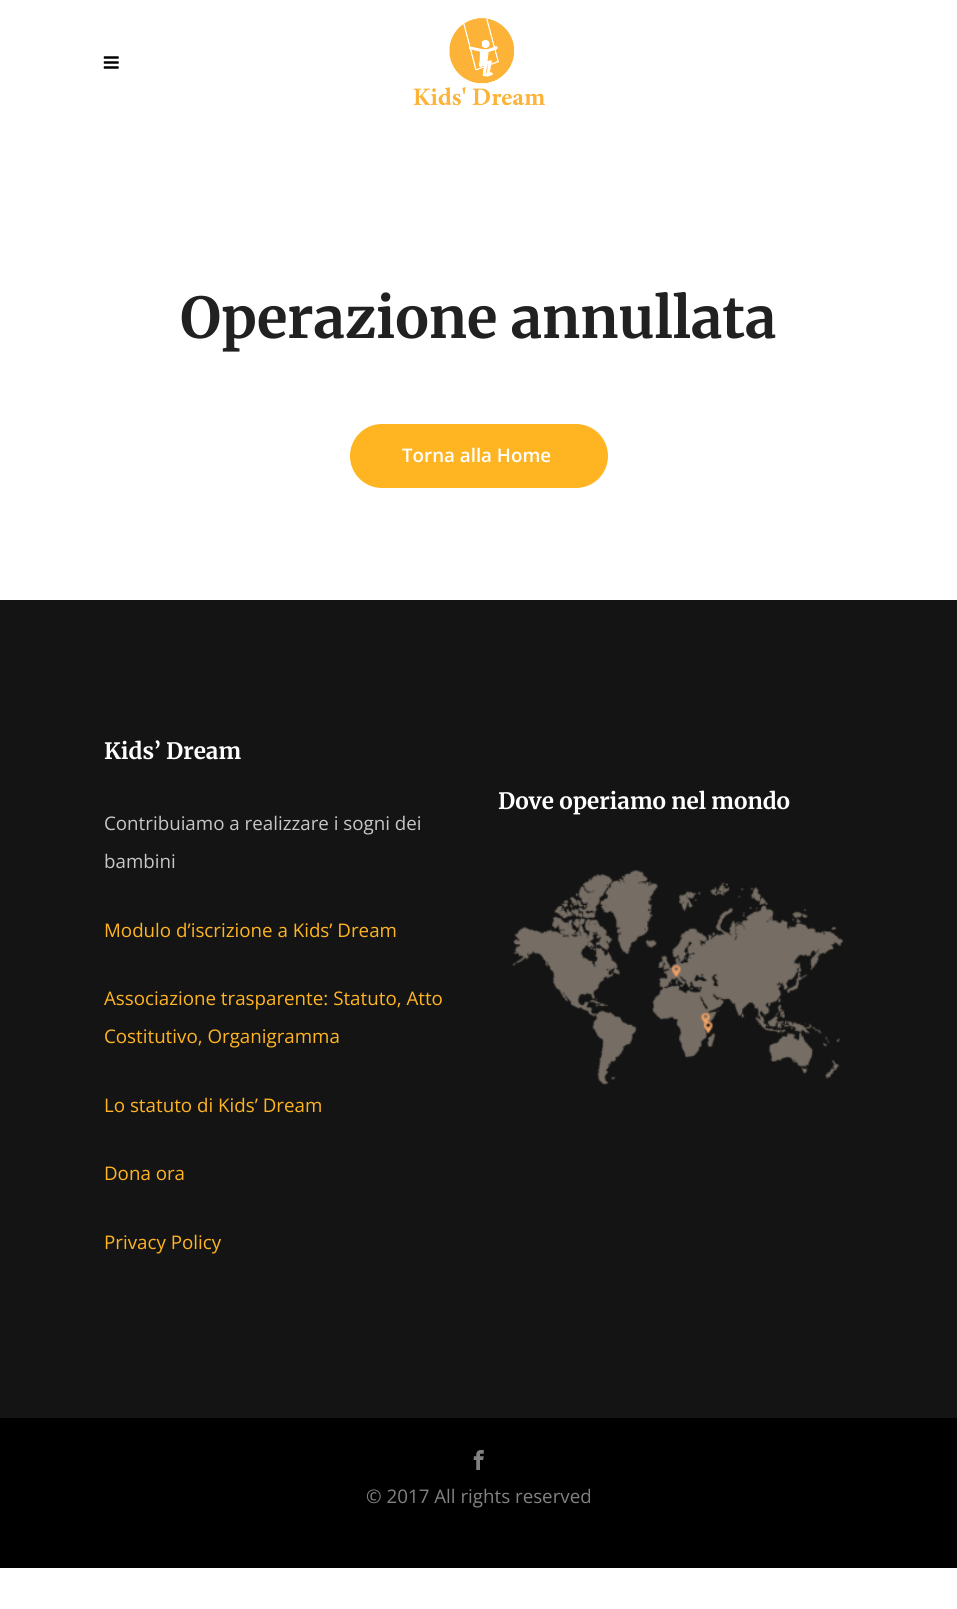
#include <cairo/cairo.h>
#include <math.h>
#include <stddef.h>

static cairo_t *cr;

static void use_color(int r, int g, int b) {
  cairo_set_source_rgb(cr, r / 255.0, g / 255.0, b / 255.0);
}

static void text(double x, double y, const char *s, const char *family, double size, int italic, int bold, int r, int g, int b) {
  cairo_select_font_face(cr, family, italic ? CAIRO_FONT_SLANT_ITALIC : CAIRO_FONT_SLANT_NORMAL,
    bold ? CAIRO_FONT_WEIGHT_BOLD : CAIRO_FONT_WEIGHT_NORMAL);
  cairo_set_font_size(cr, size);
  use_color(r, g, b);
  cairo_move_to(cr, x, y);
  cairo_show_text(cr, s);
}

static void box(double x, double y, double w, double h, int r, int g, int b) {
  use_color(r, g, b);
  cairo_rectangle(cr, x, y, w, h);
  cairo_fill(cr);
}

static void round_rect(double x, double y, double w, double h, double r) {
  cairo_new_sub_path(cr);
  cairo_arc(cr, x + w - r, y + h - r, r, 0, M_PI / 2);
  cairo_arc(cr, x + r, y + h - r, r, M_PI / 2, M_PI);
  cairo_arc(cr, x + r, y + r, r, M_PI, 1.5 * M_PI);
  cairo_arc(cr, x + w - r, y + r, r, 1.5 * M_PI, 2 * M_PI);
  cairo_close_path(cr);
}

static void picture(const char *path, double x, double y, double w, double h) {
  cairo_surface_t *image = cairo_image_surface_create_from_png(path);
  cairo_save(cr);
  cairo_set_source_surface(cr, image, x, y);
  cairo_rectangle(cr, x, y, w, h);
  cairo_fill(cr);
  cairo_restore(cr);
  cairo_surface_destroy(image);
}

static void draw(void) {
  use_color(255, 255, 255);
  cairo_paint(cr);
  picture("img_01.png", 103, 56, 16, 13);
  picture("img_02.png", 413, 18, 132, 88);
  use_color(255, 180, 34);
  round_rect(351.5, 425.5, 255, 61, 30.5);
  cairo_fill_preserve(cr);
  cairo_set_line_width(cr, 3);
  cairo_stroke(cr);
  box(0, 600, 957, 818, 20, 20, 20);
  picture("img_03.png", 512, 869, 332, 216);
  box(0, 1418, 957, 150, 0, 0, 0);
  picture("img_04.png", 473, 1450, 11, 20);
  text(180, 338, "Operazione annullata", "Merriweather", 56.25, 0, 1, 33, 33, 33);
  text(402, 462, "Torna alla Home", "Open Sans SemiBold", 18.75, 0, 0, 255, 255, 255);
  text(104, 759, "Kids’ Dream", "Merriweather", 22.5, 0, 1, 255, 255, 255);
  text(104, 830, "Contribuiamo a realizzare i sogni dei", "Open Sans", 18.75, 0, 0, 199, 199, 199);
  text(104, 868, "bambini", "Open Sans", 18.75, 0, 0, 199, 199, 199);
  text(104, 937, "Modulo d’iscrizione a Kids’ Dream", "Open Sans", 18.75, 0, 0, 255, 180, 34);
  text(104, 1005, "Associazione trasparente: Statuto, Atto", "Open Sans", 18.75, 0, 0, 255, 180, 34);
  text(104, 1043, "Costitutivo, Organigramma", "Open Sans", 18.75, 0, 0, 255, 180, 34);
  text(104, 1112, "Lo statuto di Kids’ Dream", "Open Sans", 18.75, 0, 0, 255, 180, 34);
  text(104, 1180, "Dona ora", "Open Sans", 18.75, 0, 0, 255, 180, 34);
  text(104, 1249, "Privacy Policy", "Open Sans", 18.75, 0, 0, 255, 180, 34);
  text(498, 809, "Dove operiamo nel mondo", "Merriweather", 22.5, 0, 1, 255, 255, 255);
  text(366, 1503, "© 2017 All rights reserved", "Open Sans", 18.75, 0, 0, 130, 130, 130);
}

int main(void) {
  cairo_surface_t *surface = cairo_image_surface_create(CAIRO_FORMAT_RGB24, 957, 1609);
  cr = cairo_create(surface);
  cairo_font_options_t *options = cairo_font_options_create();
  cairo_font_options_set_hint_metrics(options, CAIRO_HINT_METRICS_OFF);
  cairo_font_options_set_hint_style(options, CAIRO_HINT_STYLE_NONE);
  cairo_set_font_options(cr, options);
  cairo_set_miter_limit(cr, 4);
  draw();
  cairo_surface_write_to_png(surface, "out.png");
  cairo_font_options_destroy(options);
  cairo_destroy(cr);
  cairo_surface_destroy(surface);
  return 0;
}
